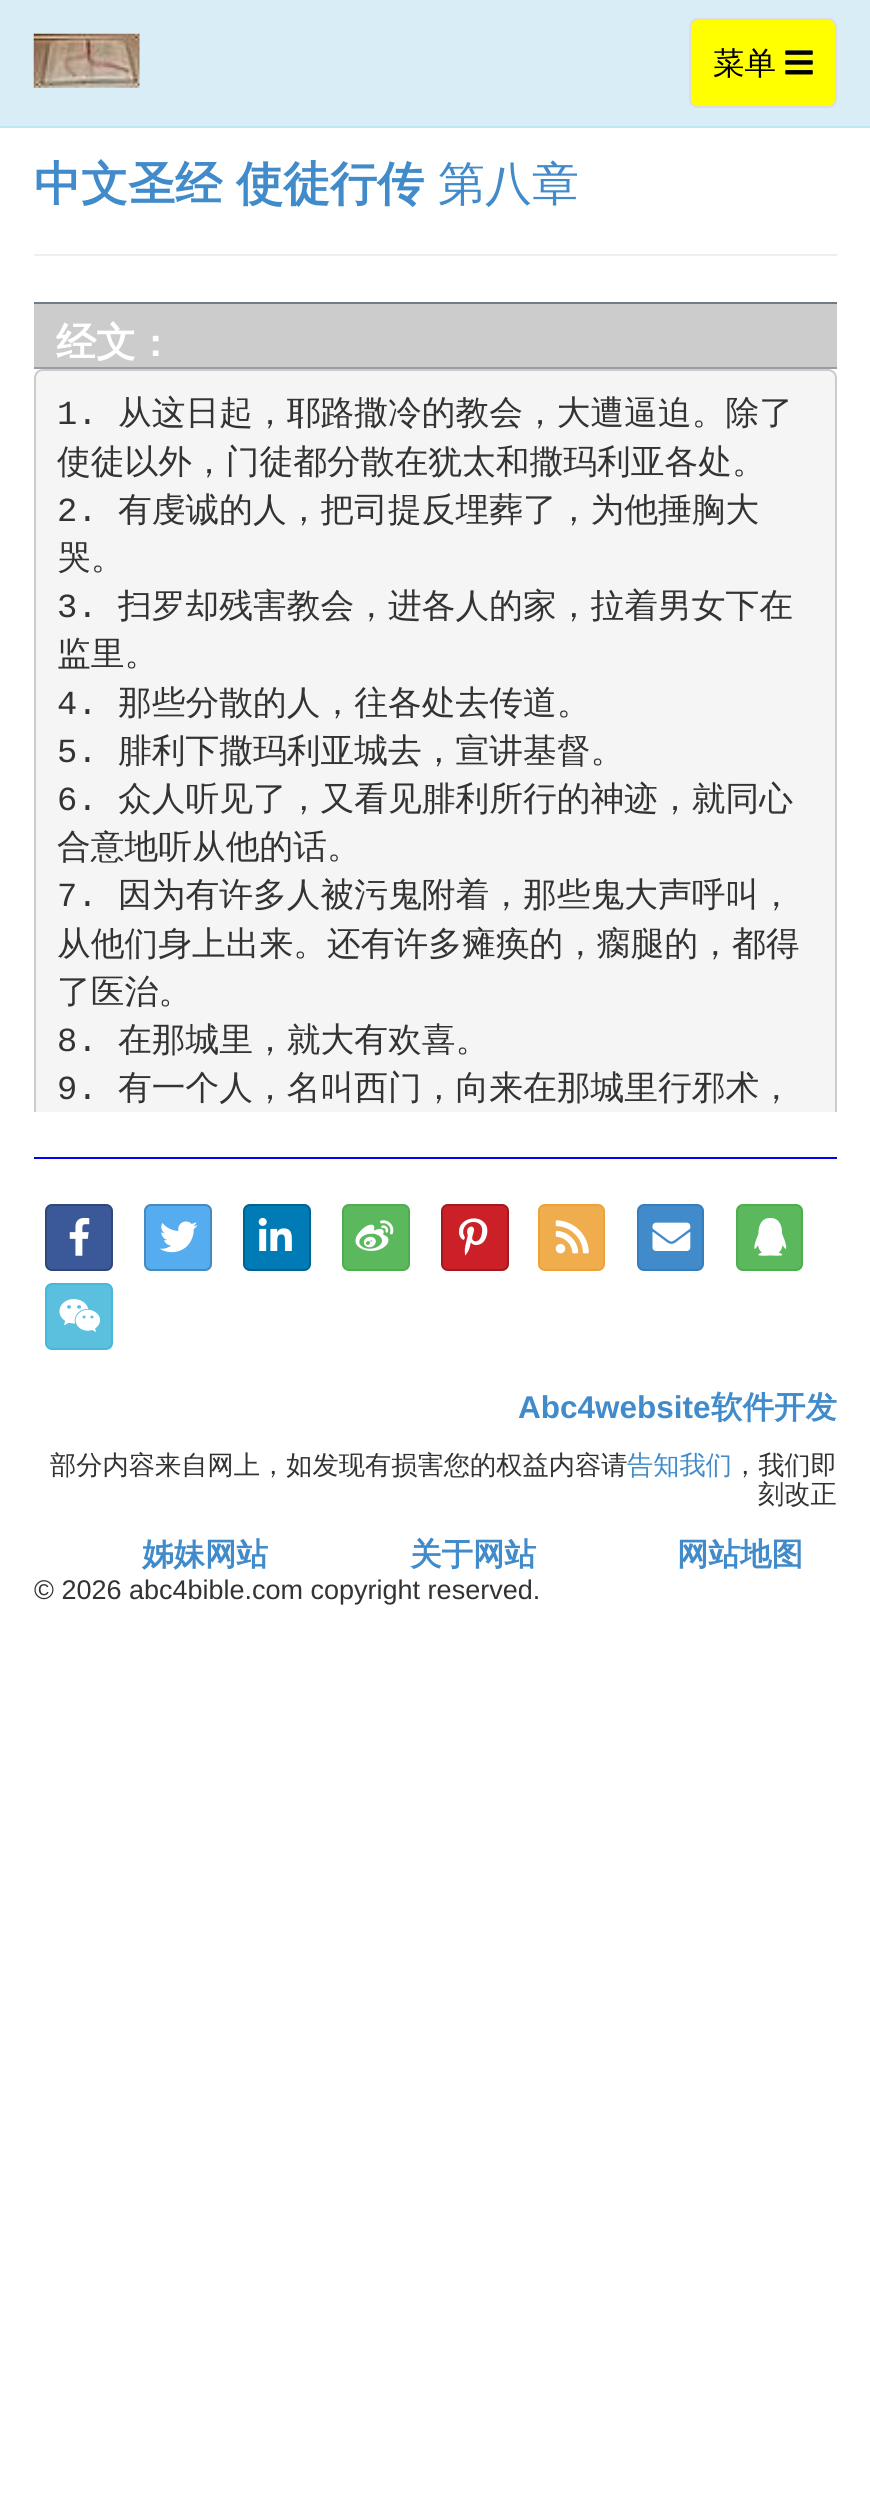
#include <cairo/cairo.h>
#include <math.h>
#include <stddef.h>

static cairo_t *cr;

static void use_color(int r, int g, int b) {
  cairo_set_source_rgb(cr, r / 255.0, g / 255.0, b / 255.0);
}

static void text(double x, double y, const char *s, const char *family, double size, int italic, int bold, int r, int g, int b) {
  cairo_select_font_face(cr, family, italic ? CAIRO_FONT_SLANT_ITALIC : CAIRO_FONT_SLANT_NORMAL,
    bold ? CAIRO_FONT_WEIGHT_BOLD : CAIRO_FONT_WEIGHT_NORMAL);
  cairo_set_font_size(cr, size);
  use_color(r, g, b);
  cairo_move_to(cr, x, y);
  cairo_show_text(cr, s);
}

static void box(double x, double y, double w, double h, int r, int g, int b) {
  use_color(r, g, b);
  cairo_rectangle(cr, x, y, w, h);
  cairo_fill(cr);
}

static void round_rect(double x, double y, double w, double h, double r) {
  cairo_new_sub_path(cr);
  cairo_arc(cr, x + w - r, y + h - r, r, 0, M_PI / 2);
  cairo_arc(cr, x + r, y + h - r, r, M_PI / 2, M_PI);
  cairo_arc(cr, x + r, y + r, r, M_PI, 1.5 * M_PI);
  cairo_arc(cr, x + w - r, y + r, r, 1.5 * M_PI, 2 * M_PI);
  cairo_close_path(cr);
}

static void picture(const char *path, double x, double y, double w, double h) {
  cairo_surface_t *image = cairo_image_surface_create_from_png(path);
  cairo_save(cr);
  cairo_set_source_surface(cr, image, x, y);
  cairo_rectangle(cr, x, y, w, h);
  cairo_fill(cr);
  cairo_restore(cr);
  cairo_surface_destroy(image);
}

static void draw(void) {
  use_color(255, 255, 255);
  cairo_paint(cr);
  box(0, 0, 870, 126, 217, 237, 247);
  box(0, 126, 870, 2, 188, 232, 241);
  picture("img_01.png", 33, 33, 107, 55);
  use_color(255, 255, 0);
  round_rect(690, 19, 146, 88, 8);
  cairo_fill_preserve(cr);
  use_color(221, 221, 221);
  cairo_stroke(cr);
  picture("img_02.png", 785, 50, 28, 25);
  box(34, 254, 803, 2, 238, 238, 238);
  box(34, 304, 803, 63, 204, 204, 204);
  box(34, 302, 803, 2, 113, 125, 133);
  box(34, 367, 803, 2, 152, 158, 164);
  use_color(245, 245, 245);
  cairo_new_path(cr);
  cairo_move_to(cr, 43, 369);
  cairo_line_to(cr, 828, 369);
  cairo_curve_to(cr, 833, 369, 837, 373, 837, 378);
  cairo_line_to(cr, 837, 1112);
  cairo_line_to(cr, 34, 1112);
  cairo_line_to(cr, 34, 378);
  cairo_curve_to(cr, 34, 373, 38, 369, 43, 369);
  cairo_close_path(cr);
  cairo_fill(cr);
  box(34, 1157, 803, 2, 0, 0, 255);
  text(713, 74, "菜单", "WenQuanYi Zen Hei Medium", 31.5, 0, 0, 0, 0, 0);
  text(34, 200, "中文圣经", "WenQuanYi Zen Hei", 47, 0, 1, 66, 139, 202);
  text(236, 200, "使徒行传", "WenQuanYi Zen Hei", 47, 0, 1, 66, 139, 202);
  text(438, 200, "第八章", "WenQuanYi Zen Hei Medium", 47, 0, 0, 66, 139, 202);
  text(56, 356, "经文", "WenQuanYi Zen Hei", 40, 0, 1, 255, 255, 255);
  text(149, 356, ":", "Liberation Sans", 40, 0, 1, 255, 255, 255);
  text(34, 1599, "© 2026 abc4bible.com copyright reserved.", "Liberation Sans", 27, 0, 0, 51, 51, 51);
  cairo_save(cr);
  cairo_rectangle(cr, 34, 302, 803, 810);
  cairo_clip(cr);
  round_rect(35, 370, 801, 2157, 8);
  use_color(204, 204, 204);
  cairo_stroke(cr);
  cairo_restore(cr);
  text(677, 1565, "网站地图", "WenQuanYi Zen Hei", 31.5, 0, 1, 66, 139, 202);
  text(410, 1565, "关于网站", "WenQuanYi Zen Hei", 31.5, 0, 1, 66, 139, 202);
  text(142, 1565, "姊妹网站", "WenQuanYi Zen Hei", 31.5, 0, 1, 66, 139, 202);
  text(758, 1503, "刻改正", "WenQuanYi Zen Hei Medium", 26.25, 0, 0, 51, 51, 51);
  text(732, 1474, "，我们即", "WenQuanYi Zen Hei Medium", 26.25, 0, 0, 51, 51, 51);
  text(627, 1474, "告知我们", "WenQuanYi Zen Hei Medium", 26.25, 0, 0, 66, 139, 202);
  text(50, 1474, "部分内容来自网上，如发现有损害您的权益内容请", "WenQuanYi Zen Hei Medium", 26.25, 0, 0, 51, 51, 51);
  text(711, 1418, "软件开发", "WenQuanYi Zen Hei", 31.5, 0, 1, 66, 139, 202);
  text(518, 1418, "Abc4website", "Liberation Sans", 31.5, 0, 1, 66, 139, 202);
  use_color(91, 192, 222);
  round_rect(46, 1284, 66, 65, 6);
  cairo_fill_preserve(cr);
  use_color(70, 184, 218);
  cairo_stroke(cr);
  picture("img_11.png", 59, 1299, 42, 33);
  use_color(92, 184, 92);
  round_rect(737, 1205, 65, 65, 6);
  cairo_fill_preserve(cr);
  use_color(76, 174, 76);
  cairo_stroke(cr);
  picture("img_10.png", 754, 1217, 33, 39);
  use_color(66, 139, 202);
  round_rect(638, 1205, 65, 65, 6);
  cairo_fill_preserve(cr);
  use_color(53, 126, 189);
  cairo_stroke(cr);
  picture("img_09.png", 652, 1222, 39, 29);
  use_color(240, 173, 78);
  round_rect(539, 1205, 65, 65, 6);
  cairo_fill_preserve(cr);
  use_color(238, 162, 54);
  cairo_stroke(cr);
  picture("img_08.png", 555, 1220, 34, 34);
  use_color(203, 32, 39);
  round_rect(441, 1204, 68, 67, 7);
  cairo_fill(cr);
  round_rect(442, 1205, 66, 65, 6);
  cairo_set_source_rgba(cr, 0, 0, 0, 0.2);
  cairo_stroke(cr);
  picture("img_07.png", 459, 1218, 29, 38);
  use_color(92, 184, 92);
  round_rect(343, 1205, 66, 65, 6);
  cairo_fill_preserve(cr);
  use_color(76, 174, 76);
  cairo_stroke(cr);
  picture("img_06.png", 355, 1220, 39, 31);
  use_color(0, 123, 182);
  round_rect(243, 1204, 68, 67, 7);
  cairo_fill(cr);
  round_rect(244, 1205, 66, 65, 6);
  cairo_set_source_rgba(cr, 0, 0, 0, 0.2);
  cairo_stroke(cr);
  picture("img_05.png", 258, 1217, 34, 34);
  use_color(85, 172, 238);
  round_rect(144, 1204, 68, 67, 7);
  cairo_fill(cr);
  round_rect(145, 1205, 66, 65, 6);
  cairo_set_source_rgba(cr, 0, 0, 0, 0.2);
  cairo_stroke(cr);
  picture("img_04.png", 160, 1221, 38, 32);
  use_color(59, 89, 152);
  round_rect(45, 1204, 68, 67, 7);
  cairo_fill(cr);
  round_rect(46, 1205, 66, 65, 6);
  cairo_set_source_rgba(cr, 0, 0, 0, 0.2);
  cairo_stroke(cr);
  picture("img_03.png", 69, 1217, 21, 39);
  text(118, 1099, "有一个人，名叫西门，向来在那城里行邪术，", "WenQuanYi Zen Hei Medium", 33.75, 0, 0, 51, 51, 51);
  text(57, 1099, "9.", "Liberation Mono", 33.75, 0, 0, 51, 51, 51);
  text(118, 1051, "在那城里，就大有欢喜。", "WenQuanYi Zen Hei Medium", 33.75, 0, 0, 51, 51, 51);
  text(57, 1051, "8.", "Liberation Mono", 33.75, 0, 0, 51, 51, 51);
  text(57, 1003, "了医治。", "WenQuanYi Zen Hei Medium", 33.75, 0, 0, 51, 51, 51);
  text(57, 955, "从他们身上出来。还有许多瘫痪的，瘸腿的，都得", "WenQuanYi Zen Hei Medium", 33.75, 0, 0, 51, 51, 51);
  text(118, 906, "因为有许多人被污鬼附着，那些鬼大声呼叫，", "WenQuanYi Zen Hei Medium", 33.75, 0, 0, 51, 51, 51);
  text(57, 906, "7.", "Liberation Mono", 33.75, 0, 0, 51, 51, 51);
  text(57, 858, "合意地听从他的话。", "WenQuanYi Zen Hei Medium", 33.75, 0, 0, 51, 51, 51);
  text(118, 810, "众人听见了，又看见腓利所行的神迹，就同心", "WenQuanYi Zen Hei Medium", 33.75, 0, 0, 51, 51, 51);
  text(57, 810, "6.", "Liberation Mono", 33.75, 0, 0, 51, 51, 51);
  text(118, 762, "腓利下撒玛利亚城去，宣讲基督。", "WenQuanYi Zen Hei Medium", 33.75, 0, 0, 51, 51, 51);
  text(57, 762, "5.", "Liberation Mono", 33.75, 0, 0, 51, 51, 51);
  text(118, 714, "那些分散的人，往各处去传道。", "WenQuanYi Zen Hei Medium", 33.75, 0, 0, 51, 51, 51);
  text(57, 714, "4.", "Liberation Mono", 33.75, 0, 0, 51, 51, 51);
  text(57, 665, "监里。", "WenQuanYi Zen Hei Medium", 33.75, 0, 0, 51, 51, 51);
  text(118, 617, "扫罗却残害教会，进各人的家，拉着男女下在", "WenQuanYi Zen Hei Medium", 33.75, 0, 0, 51, 51, 51);
  text(57, 617, "3.", "Liberation Mono", 33.75, 0, 0, 51, 51, 51);
  text(57, 569, "哭。", "WenQuanYi Zen Hei Medium", 33.75, 0, 0, 51, 51, 51);
  text(118, 521, "有虔诚的人，把司提反埋葬了，为他捶胸大", "WenQuanYi Zen Hei Medium", 33.75, 0, 0, 51, 51, 51);
  text(57, 521, "2.", "Liberation Mono", 33.75, 0, 0, 51, 51, 51);
  text(57, 473, "使徒以外，门徒都分散在犹太和撒玛利亚各处。", "WenQuanYi Zen Hei Medium", 33.75, 0, 0, 51, 51, 51);
  text(118, 424, "从这日起，耶路撒冷的教会，大遭逼迫。除了", "WenQuanYi Zen Hei Medium", 33.75, 0, 0, 51, 51, 51);
  text(57, 424, "1.", "Liberation Mono", 33.75, 0, 0, 51, 51, 51);
}

int main(void) {
  cairo_surface_t *surface = cairo_image_surface_create(CAIRO_FORMAT_RGB24, 870, 2517);
  cr = cairo_create(surface);
  cairo_font_options_t *options = cairo_font_options_create();
  cairo_font_options_set_hint_metrics(options, CAIRO_HINT_METRICS_OFF);
  cairo_font_options_set_hint_style(options, CAIRO_HINT_STYLE_NONE);
  cairo_set_font_options(cr, options);
  cairo_set_miter_limit(cr, 4);
  draw();
  cairo_surface_write_to_png(surface, "out.png");
  cairo_font_options_destroy(options);
  cairo_destroy(cr);
  cairo_surface_destroy(surface);
  return 0;
}
